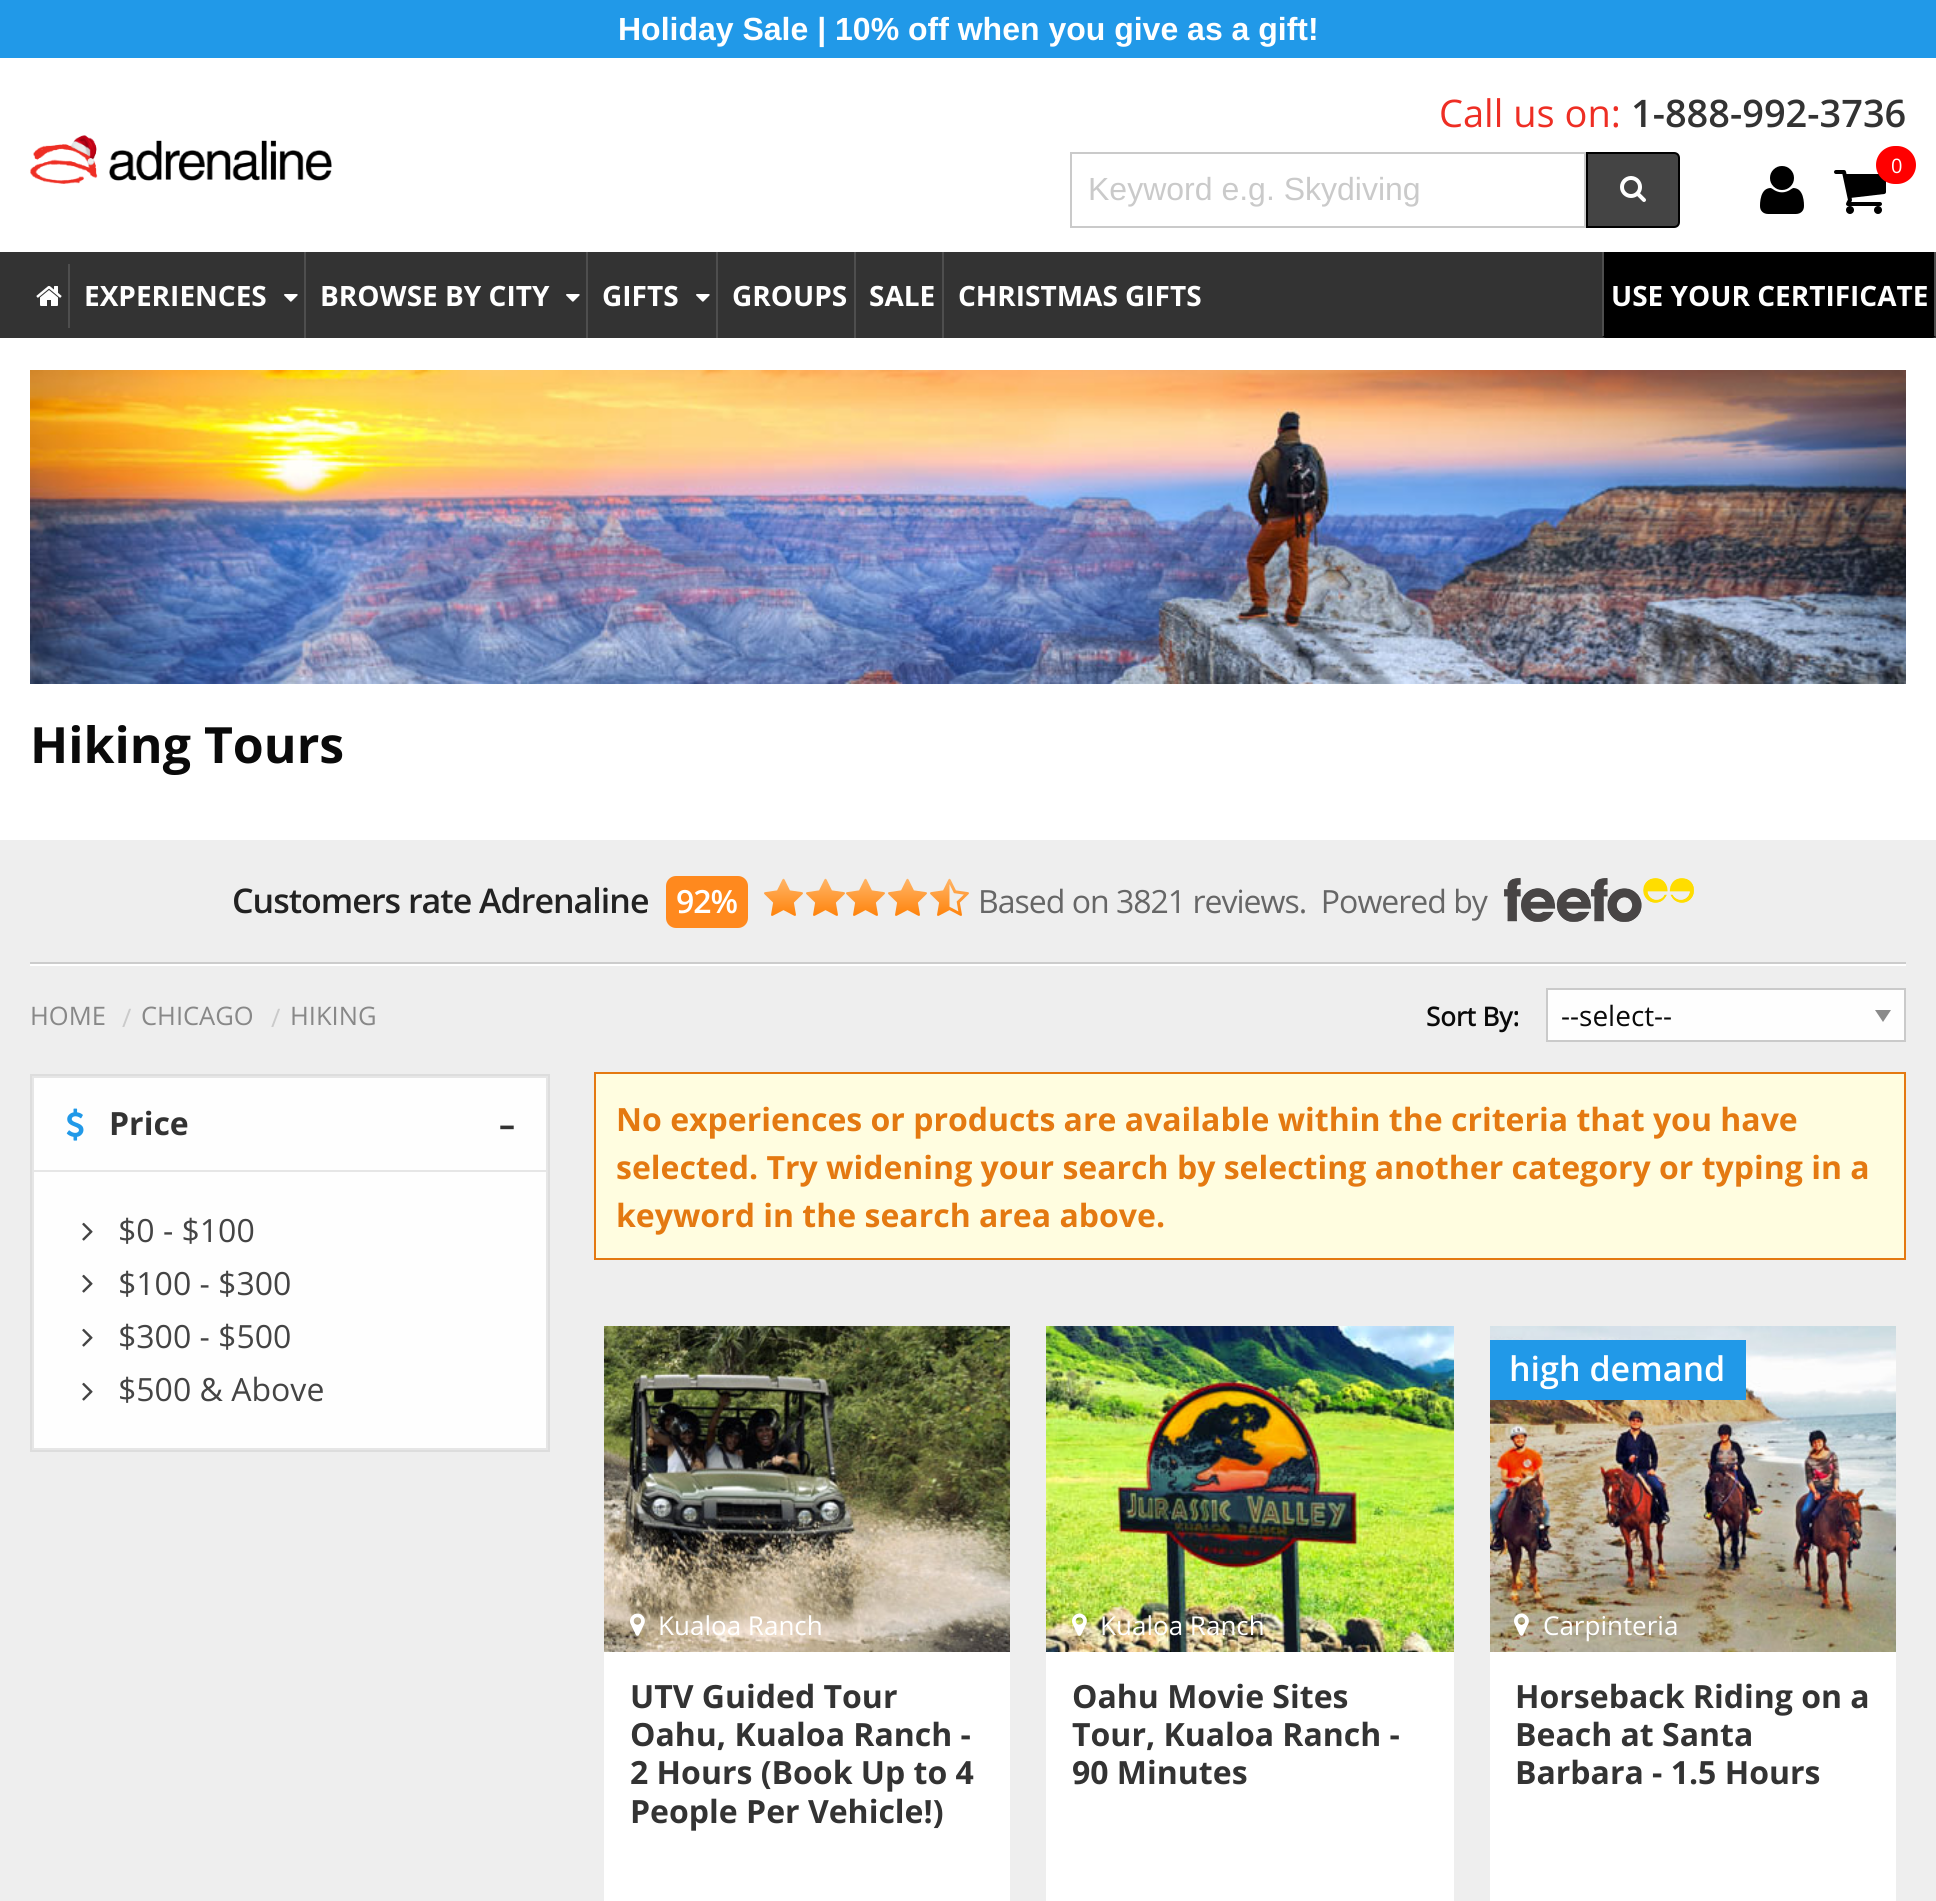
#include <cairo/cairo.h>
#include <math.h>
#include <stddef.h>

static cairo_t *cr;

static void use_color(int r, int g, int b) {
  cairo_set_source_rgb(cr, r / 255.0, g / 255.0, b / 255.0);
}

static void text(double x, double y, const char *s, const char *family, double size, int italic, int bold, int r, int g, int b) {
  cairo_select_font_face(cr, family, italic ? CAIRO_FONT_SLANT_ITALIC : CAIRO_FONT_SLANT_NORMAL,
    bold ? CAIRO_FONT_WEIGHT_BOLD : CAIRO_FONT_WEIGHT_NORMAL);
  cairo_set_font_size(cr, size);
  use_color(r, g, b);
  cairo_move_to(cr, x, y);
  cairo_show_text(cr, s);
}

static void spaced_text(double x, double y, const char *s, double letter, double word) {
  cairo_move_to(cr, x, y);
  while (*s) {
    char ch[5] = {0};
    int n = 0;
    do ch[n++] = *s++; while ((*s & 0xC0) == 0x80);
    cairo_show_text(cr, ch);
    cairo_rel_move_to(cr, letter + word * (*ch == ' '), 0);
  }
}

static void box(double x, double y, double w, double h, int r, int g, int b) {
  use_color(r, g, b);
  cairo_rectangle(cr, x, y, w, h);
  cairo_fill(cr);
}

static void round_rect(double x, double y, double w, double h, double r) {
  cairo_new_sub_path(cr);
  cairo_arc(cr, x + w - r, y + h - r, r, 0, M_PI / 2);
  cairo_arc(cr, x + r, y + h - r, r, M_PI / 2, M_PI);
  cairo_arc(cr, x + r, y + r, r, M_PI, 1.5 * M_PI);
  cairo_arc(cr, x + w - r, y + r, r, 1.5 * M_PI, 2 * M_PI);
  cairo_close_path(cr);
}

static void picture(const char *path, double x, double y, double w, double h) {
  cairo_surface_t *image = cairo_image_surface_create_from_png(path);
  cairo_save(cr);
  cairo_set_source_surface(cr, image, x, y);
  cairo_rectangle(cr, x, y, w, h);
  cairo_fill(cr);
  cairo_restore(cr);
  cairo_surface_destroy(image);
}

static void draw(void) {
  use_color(255, 255, 255);
  cairo_paint(cr);
  box(0, 0, 1936, 58, 33, 153, 232);
  picture("img_01.png", 30, 135, 302, 49);
  picture("img_02.png", 1760, 166, 44, 48);
  picture("img_03.png", 1834, 170, 52, 44);
  use_color(255, 0, 0);
  round_rect(1876, 146, 40, 38, 19);
  cairo_fill(cr);
  cairo_rectangle(cr, 1071, 153, 514, 74);
  use_color(202, 202, 202);
  cairo_stroke(cr);
  use_color(68, 68, 68);
  cairo_new_path(cr);
  cairo_move_to(cr, 1587, 153);
  cairo_line_to(cr, 1674, 153);
  cairo_curve_to(cr, 1677, 153, 1679, 155, 1679, 158);
  cairo_line_to(cr, 1679, 222);
  cairo_curve_to(cr, 1679, 225, 1677, 227, 1674, 227);
  cairo_line_to(cr, 1587, 227);
  cairo_close_path(cr);
  cairo_fill_preserve(cr);
  use_color(0, 0, 0);
  cairo_stroke(cr);
  picture("img_04.png", 1620, 176, 26, 26);
  box(0, 252, 1936, 86, 51, 51, 51);
  box(68, 264, 2, 64, 78, 78, 78);
  picture("img_05.png", 36, 286, 26, 20);
  box(304, 252, 2, 86, 78, 78, 78);
  picture("img_06.png", 284, 294, 14, 8);
  box(586, 252, 2, 86, 78, 78, 78);
  picture("img_06.png", 566, 294, 14, 8);
  box(716, 252, 2, 86, 78, 78, 78);
  picture("img_06.png", 696, 294, 14, 8);
  box(854, 252, 2, 86, 78, 78, 78);
  box(942, 252, 2, 86, 78, 78, 78);
  use_color(0, 0, 0);
  cairo_new_path(cr);
  cairo_move_to(cr, 1602, 252);
  cairo_line_to(cr, 1936, 252);
  cairo_line_to(cr, 1936, 334);
  cairo_curve_to(cr, 1936, 336, 1934, 338, 1932, 338);
  cairo_line_to(cr, 1606, 338);
  cairo_curve_to(cr, 1604, 338, 1602, 336, 1602, 334);
  cairo_close_path(cr);
  cairo_fill(cr);
  box(1934, 252, 2, 84, 78, 78, 78);
  box(1602, 252, 2, 84, 78, 78, 78);
  picture("img_07.png", 30, 370, 1876, 314);
  box(0, 840, 1936, 1061, 238, 238, 238);
  use_color(255, 137, 30);
  round_rect(666, 876, 82, 52, 10);
  cairo_fill(cr);
  picture("img_08.png", 764, 878, 39, 38);
  picture("img_08.png", 806, 878, 39, 38);
  picture("img_08.png", 846, 878, 39, 38);
  picture("img_08.png", 888, 878, 39, 38);
  picture("img_09.png", 930, 878, 39, 38);
  picture("img_10.png", 1504, 878, 190, 44);
  box(30, 962, 1876, 2, 204, 204, 204);
  box(30, 964, 1876, 2, 255, 255, 255);
  box(34, 1078, 512, 370, 254, 254, 254);
  cairo_rectangle(cr, 31, 1075, 518, 376);
  use_color(221, 221, 221);
  cairo_stroke(cr);
  box(32, 1076, 516, 2, 230, 230, 230);
  box(546, 1076, 2, 94, 230, 230, 230);
  box(32, 1076, 2, 94, 230, 230, 230);
  picture("img_11.png", 66, 1108, 18, 33);
  cairo_rectangle(cr, 33, 1171, 514, 278);
  cairo_stroke(cr);
  picture("img_12.png", 82, 1222, 11, 19);
  picture("img_12.png", 82, 1274, 11, 19);
  picture("img_12.png", 82, 1328, 11, 19);
  picture("img_12.png", 82, 1382, 11, 19);
  box(1548, 990, 356, 50, 254, 254, 254);
  use_color(138, 138, 138);
  cairo_new_path(cr);
  cairo_move_to(cr, 1875, 1010);
  cairo_line_to(cr, 1891, 1010);
  cairo_line_to(cr, 1883, 1022);
  cairo_close_path(cr);
  cairo_fill(cr);
  cairo_rectangle(cr, 1547, 989, 358, 52);
  use_color(202, 202, 202);
  cairo_stroke(cr);
  use_color(255, 253, 224);
  cairo_rectangle(cr, 595, 1073, 1310, 186);
  cairo_fill_preserve(cr);
  use_color(228, 121, 17);
  cairo_stroke(cr);
  box(604, 1652, 406, 249, 255, 255, 255);
  picture("img_13.png", 604, 1326, 406, 326);
  picture("img_14.png", 630, 1613, 15, 23);
  box(1046, 1652, 408, 249, 255, 255, 255);
  picture("img_15.png", 1046, 1326, 408, 326);
  picture("img_16.png", 1072, 1613, 15, 23);
  box(1490, 1652, 406, 249, 255, 255, 255);
  picture("img_17.png", 1490, 1326, 406, 326);
  box(1490, 1340, 256, 60, 33, 153, 232);
  picture("img_18.png", 1514, 1613, 15, 23);
  text(618, 40, "Holiday Sale | 10% off when you give as a gift!", "Liberation Sans", 32, 0, 1, 255, 255, 255);
  text(1439, 127, "Call us on:", "Open Sans", 38, 0, 0, 238, 46, 36);
  text(1631, 127, "1-888-992-3736", "Open Sans SemiBold", 38, 0, 0, 51, 51, 51);
  text(1891, 173, "0", "Open Sans", 20, 0, 0, 255, 255, 255);
  text(1088, 200, "Keyword e.g. Skydiving", "Liberation Sans", 32, 0, 0, 202, 202, 202);
  text(84, 306, "EXPERIENCES", "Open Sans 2", 28, 0, 1, 255, 255, 255);
  text(320, 306, "BROWSE BY CITY", "Open Sans 2", 28, 0, 1, 255, 255, 255);
  text(602, 306, "GIFTS", "Open Sans 2", 28, 0, 1, 255, 255, 255);
  text(732, 306, "GROUPS", "Open Sans 2", 28, 0, 1, 255, 255, 255);
  text(869, 306, "SALE", "Open Sans 2", 28, 0, 1, 255, 255, 255);
  text(958, 306, "CHRISTMAS GIFTS", "Open Sans 2", 28, 0, 1, 255, 255, 255);
  text(1611, 306, "USE YOUR CERTIFICATE", "Open Sans 2", 28, 0, 1, 255, 255, 255);
  text(30, 763, "Hiking Tours", "Open Sans 2", 50, 0, 1, 10, 10, 10);
  cairo_select_font_face(cr, "Open Sans SemiBold", CAIRO_FONT_SLANT_NORMAL, CAIRO_FONT_WEIGHT_NORMAL);
  cairo_set_font_size(cr, 34);
  use_color(34, 34, 34);
  spaced_text(232, 913, "Customers rate Adrenaline", -1, 0);
  cairo_set_font_size(cr, 32);
  use_color(255, 255, 255);
  spaced_text(676, 913, "92%", -1, 0);
  cairo_select_font_face(cr, "Open Sans", CAIRO_FONT_SLANT_NORMAL, CAIRO_FONT_WEIGHT_NORMAL);
  use_color(102, 102, 102);
  spaced_text(978, 913, "Based on 3821 reviews.  Powered by", -1, 0);
  text(109, 1135, "Price", "Open Sans 2", 32, 0, 1, 51, 51, 51);
  text(499, 1136, "–", "Open Sans 2", 32, 0, 1, 51, 51, 51);
  text(118, 1242, "$0 - $100", "Open Sans", 32, 0, 0, 68, 68, 68);
  text(118, 1295, "$100 - $300", "Open Sans", 32, 0, 0, 68, 68, 68);
  text(118, 1348, "$300 - $500", "Open Sans", 32, 0, 0, 68, 68, 68);
  text(118, 1401, "$500 & Above", "Open Sans", 32, 0, 0, 68, 68, 68);
  text(1426, 1026, "Sort By:", "Open Sans", 26, 0, 1, 10, 10, 10);
  text(1561, 1026, "--select--", "Open Sans", 28, 0, 0, 10, 10, 10);
  text(616, 1131, "No experiences or products are available within the criteria that you have", "Open Sans 2", 32, 0, 1, 228, 121, 17);
  text(616, 1179, "selected. Try widening your search by selecting another category or typing in a", "Open Sans 2", 32, 0, 1, 228, 121, 17);
  text(616, 1227, "keyword in the search area above.", "Open Sans 2", 32, 0, 1, 228, 121, 17);
  text(658, 1635, "Kualoa Ranch", "Open Sans", 26, 0, 0, 255, 255, 255);
  text(630, 1708, "UTV Guided Tour", "Open Sans 2", 32, 0, 1, 51, 51, 51);
  text(630, 1746, "Oahu, Kualoa Ranch -", "Open Sans 2", 32, 0, 1, 51, 51, 51);
  text(630, 1784, "2 Hours (Book Up to 4", "Open Sans 2", 32, 0, 1, 51, 51, 51);
  text(630, 1823, "People Per Vehicle!)", "Open Sans 2", 32, 0, 1, 51, 51, 51);
  text(1100, 1635, "Kualoa Ranch", "Open Sans", 26, 0, 0, 255, 255, 255);
  text(1072, 1708, "Oahu Movie Sites", "Open Sans 2", 32, 0, 1, 51, 51, 51);
  text(1072, 1746, "Tour, Kualoa Ranch -", "Open Sans 2", 32, 0, 1, 51, 51, 51);
  text(1072, 1784, "90 Minutes", "Open Sans 2", 32, 0, 1, 51, 51, 51);
  text(1509, 1381, "high demand", "Open Sans SemiBold", 34, 0, 0, 255, 255, 255);
  text(1543, 1635, "Carpinteria", "Open Sans", 26, 0, 0, 255, 255, 255);
  text(1515, 1708, "Horseback Riding on a", "Open Sans 2", 32, 0, 1, 51, 51, 51);
  text(1515, 1746, "Beach at Santa", "Open Sans 2", 32, 0, 1, 51, 51, 51);
  text(1515, 1784, "Barbara - 1.5 Hours", "Open Sans 2", 32, 0, 1, 51, 51, 51);
  text(30, 1025, "HOME", "Open Sans", 25.5, 0, 0, 136, 136, 136);
  text(122, 1027, "/", "Open Sans", 25.5, 0, 0, 202, 202, 202);
  text(141, 1025, "CHICAGO", "Open Sans", 25.5, 0, 0, 136, 136, 136);
  text(271, 1027, "/", "Open Sans", 25.5, 0, 0, 202, 202, 202);
  text(290, 1025, "HIKING", "Open Sans", 25.5, 0, 0, 136, 136, 136);
}

int main(void) {
  cairo_surface_t *surface = cairo_image_surface_create(CAIRO_FORMAT_RGB24, 1936, 1901);
  cr = cairo_create(surface);
  cairo_font_options_t *options = cairo_font_options_create();
  cairo_font_options_set_hint_metrics(options, CAIRO_HINT_METRICS_OFF);
  cairo_font_options_set_hint_style(options, CAIRO_HINT_STYLE_NONE);
  cairo_set_font_options(cr, options);
  cairo_set_miter_limit(cr, 4);
  draw();
  cairo_surface_write_to_png(surface, "out.png");
  cairo_font_options_destroy(options);
  cairo_destroy(cr);
  cairo_surface_destroy(surface);
  return 0;
}
